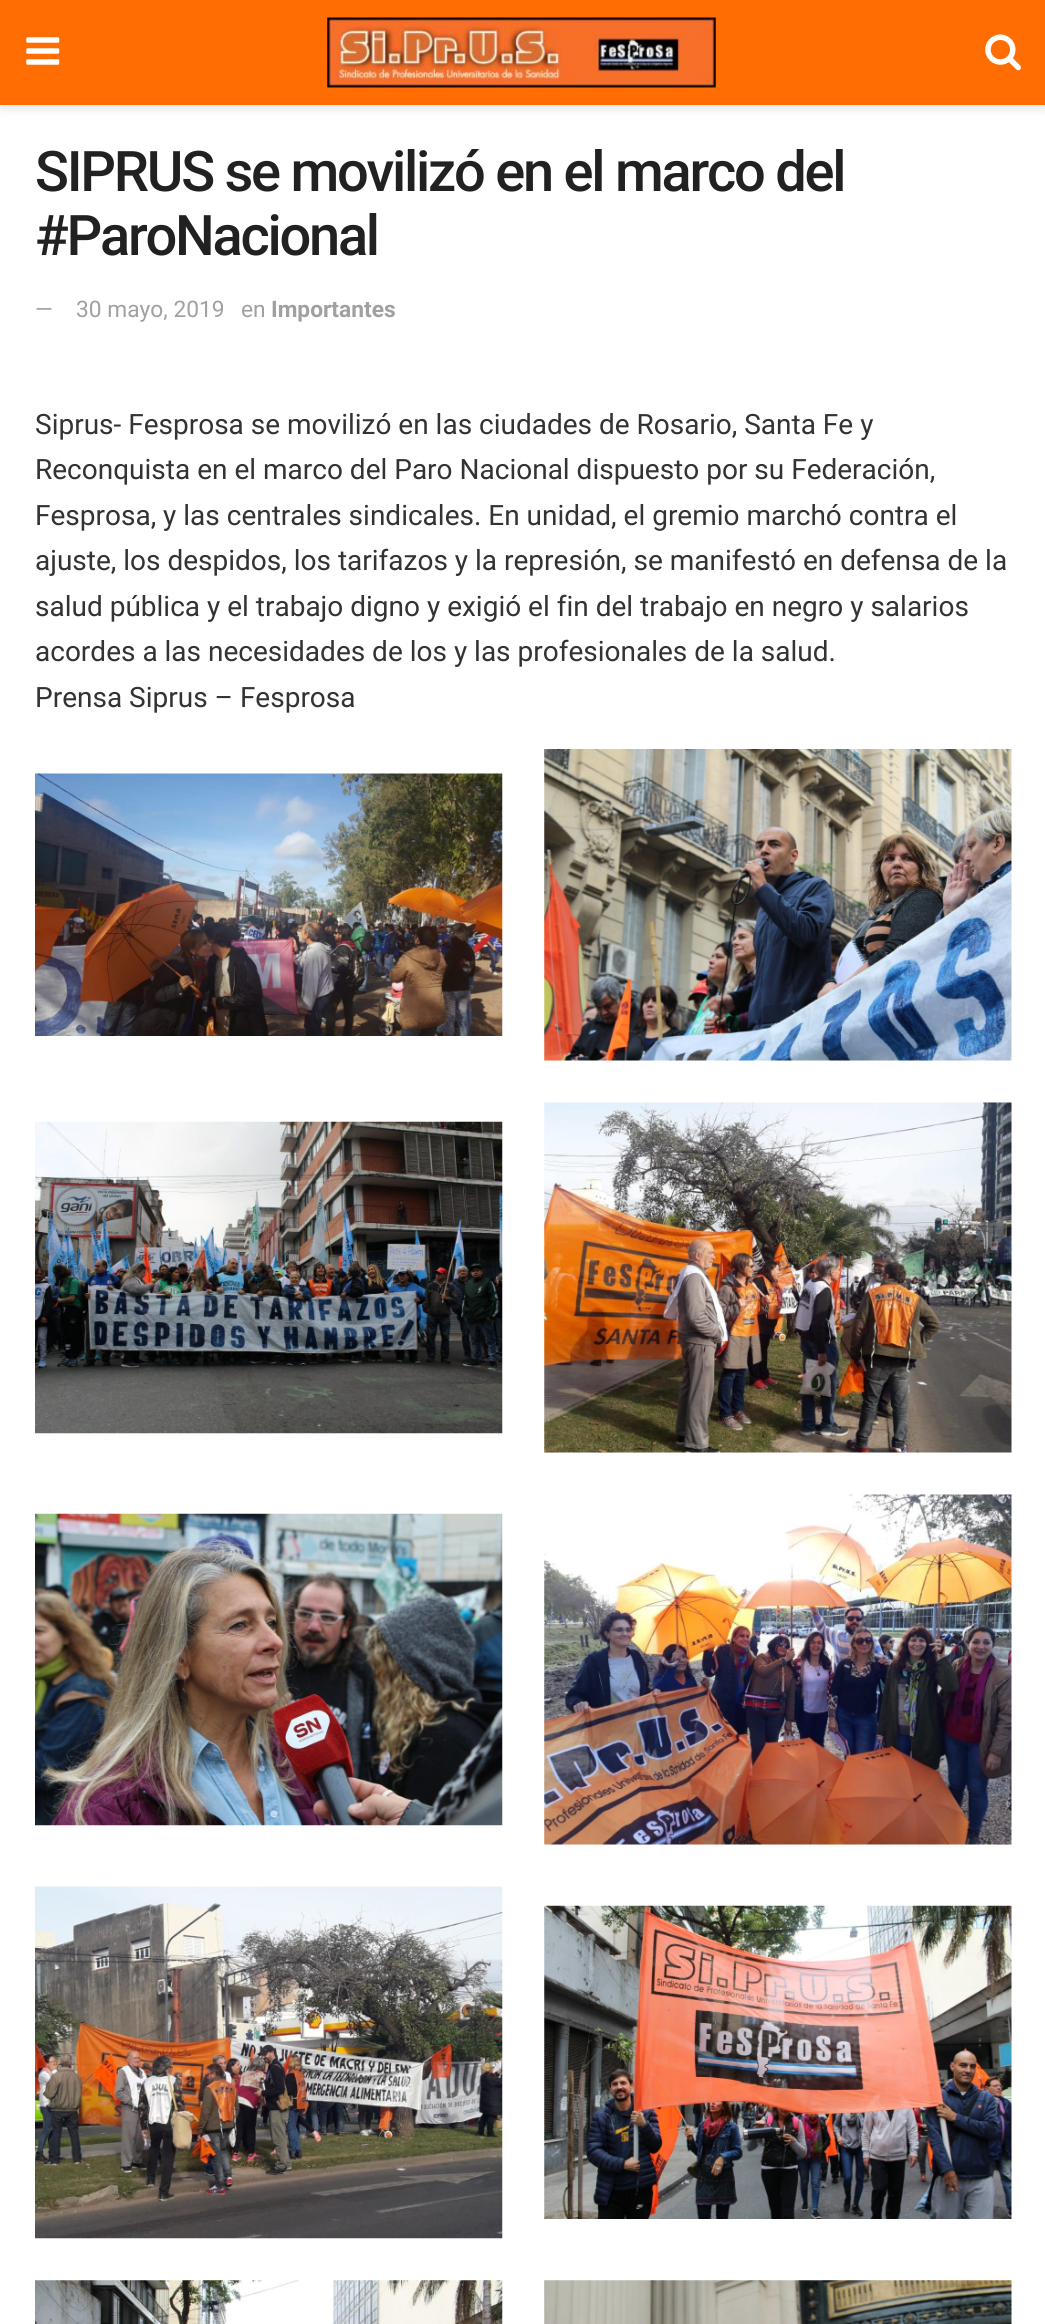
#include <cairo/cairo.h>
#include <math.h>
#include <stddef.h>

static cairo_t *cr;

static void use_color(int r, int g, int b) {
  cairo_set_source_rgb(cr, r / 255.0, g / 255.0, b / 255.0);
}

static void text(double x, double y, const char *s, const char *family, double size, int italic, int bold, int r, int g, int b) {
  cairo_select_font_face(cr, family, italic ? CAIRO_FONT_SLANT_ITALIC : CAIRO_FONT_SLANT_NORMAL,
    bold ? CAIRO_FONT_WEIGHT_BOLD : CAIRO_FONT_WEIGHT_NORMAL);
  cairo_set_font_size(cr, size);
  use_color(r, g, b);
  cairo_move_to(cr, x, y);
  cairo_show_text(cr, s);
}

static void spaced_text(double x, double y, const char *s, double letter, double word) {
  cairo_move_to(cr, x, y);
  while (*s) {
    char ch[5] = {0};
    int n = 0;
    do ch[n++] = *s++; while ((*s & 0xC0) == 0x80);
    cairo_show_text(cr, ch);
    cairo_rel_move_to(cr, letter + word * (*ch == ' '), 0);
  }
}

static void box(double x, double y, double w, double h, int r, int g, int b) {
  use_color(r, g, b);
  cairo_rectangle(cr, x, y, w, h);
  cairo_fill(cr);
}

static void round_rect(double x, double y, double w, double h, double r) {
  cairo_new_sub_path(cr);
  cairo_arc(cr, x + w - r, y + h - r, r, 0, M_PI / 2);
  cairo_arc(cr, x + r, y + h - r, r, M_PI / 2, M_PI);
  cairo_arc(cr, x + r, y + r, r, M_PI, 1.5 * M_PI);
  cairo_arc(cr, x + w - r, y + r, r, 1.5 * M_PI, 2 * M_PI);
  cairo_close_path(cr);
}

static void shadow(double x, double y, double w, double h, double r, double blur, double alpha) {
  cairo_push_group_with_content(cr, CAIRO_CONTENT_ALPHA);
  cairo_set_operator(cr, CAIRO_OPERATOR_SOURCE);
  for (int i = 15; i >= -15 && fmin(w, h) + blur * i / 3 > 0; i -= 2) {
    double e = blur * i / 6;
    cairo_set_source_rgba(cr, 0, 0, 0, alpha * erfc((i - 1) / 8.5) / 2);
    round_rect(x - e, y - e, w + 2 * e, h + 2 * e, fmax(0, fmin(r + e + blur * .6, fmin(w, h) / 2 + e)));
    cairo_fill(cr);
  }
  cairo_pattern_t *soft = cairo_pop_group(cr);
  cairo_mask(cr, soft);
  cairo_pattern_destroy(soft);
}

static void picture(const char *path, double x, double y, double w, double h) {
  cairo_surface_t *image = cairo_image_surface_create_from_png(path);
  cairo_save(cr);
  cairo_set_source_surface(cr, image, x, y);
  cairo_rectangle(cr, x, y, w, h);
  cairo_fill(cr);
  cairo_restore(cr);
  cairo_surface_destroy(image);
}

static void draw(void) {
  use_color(255, 255, 255);
  cairo_paint(cr);
  use_color(0, 0, 0);
  shadow(0, 4, 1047, 105, 0, 5, 0.1);
  box(0, 0, 1045, 105, 255, 109, 3);
  picture("img_01.png", 26, 37, 34, 28);
  picture("img_02.png", 327, 17, 389, 71);
  picture("img_03.png", 985, 34, 36, 37);
  picture("img_04.png", 35, 773, 468, 263);
  picture("img_05.png", 544, 749, 468, 312);
  picture("img_06.png", 35, 1121, 468, 313);
  picture("img_07.png", 544, 1102, 468, 351);
  picture("img_08.png", 35, 1513, 468, 313);
  picture("img_09.png", 544, 1494, 468, 351);
  picture("img_10.png", 35, 1886, 468, 353);
  picture("img_11.png", 544, 1905, 468, 314);
  picture("img_12.png", 35, 2280, 468, 44);
  picture("img_13.png", 544, 2280, 468, 44);
  cairo_select_font_face(cr, "Roboto Medium", CAIRO_FONT_SLANT_NORMAL, CAIRO_FONT_WEIGHT_NORMAL);
  cairo_set_font_size(cr, 56);
  use_color(33, 33, 33);
  spaced_text(35, 191, "SIPRUS se movilizó en el marco del", -2.25, 0);
  spaced_text(35, 255, "#ParoNacional", -2.25, 0);
  text(35, 317, "—", "Roboto", 22.75, 0, 0, 160, 160, 160);
  text(76, 317, "30 mayo, 2019", "Roboto", 22.75, 0, 0, 160, 160, 160);
  text(241, 317, "en", "Roboto", 22.75, 0, 0, 160, 160, 160);
  text(271, 317, "Importantes", "Roboto", 22.75, 0, 1, 160, 160, 160);
  text(35, 434, "Siprus- Fesprosa se movilizó en las ciudades de Rosario, Santa Fe y", "Roboto", 28, 0, 0, 51, 51, 51);
  text(35, 479, "Reconquista en el marco del Paro Nacional dispuesto por su Federación,", "Roboto", 28, 0, 0, 51, 51, 51);
  text(35, 525, "Fesprosa, y las centrales sindicales. En unidad, el gremio marchó contra el", "Roboto", 28, 0, 0, 51, 51, 51);
  text(35, 570, "ajuste, los despidos, los tarifazos y la represión, se manifestó en defensa de la", "Roboto", 28, 0, 0, 51, 51, 51);
  text(35, 616, "salud pública y el trabajo digno y exigió el fin del trabajo en negro y salarios", "Roboto", 28, 0, 0, 51, 51, 51);
  text(35, 661, "acordes a las necesidades de los y las profesionales de la salud.", "Roboto", 28, 0, 0, 51, 51, 51);
  text(35, 707, "Prensa Siprus – Fesprosa", "Roboto", 28, 0, 0, 51, 51, 51);
}

int main(void) {
  cairo_surface_t *surface = cairo_image_surface_create(CAIRO_FORMAT_RGB24, 1045, 2324);
  cr = cairo_create(surface);
  cairo_font_options_t *options = cairo_font_options_create();
  cairo_font_options_set_hint_metrics(options, CAIRO_HINT_METRICS_OFF);
  cairo_font_options_set_hint_style(options, CAIRO_HINT_STYLE_NONE);
  cairo_set_font_options(cr, options);
  cairo_set_miter_limit(cr, 4);
  draw();
  cairo_surface_write_to_png(surface, "out.png");
  cairo_font_options_destroy(options);
  cairo_destroy(cr);
  cairo_surface_destroy(surface);
  return 0;
}
